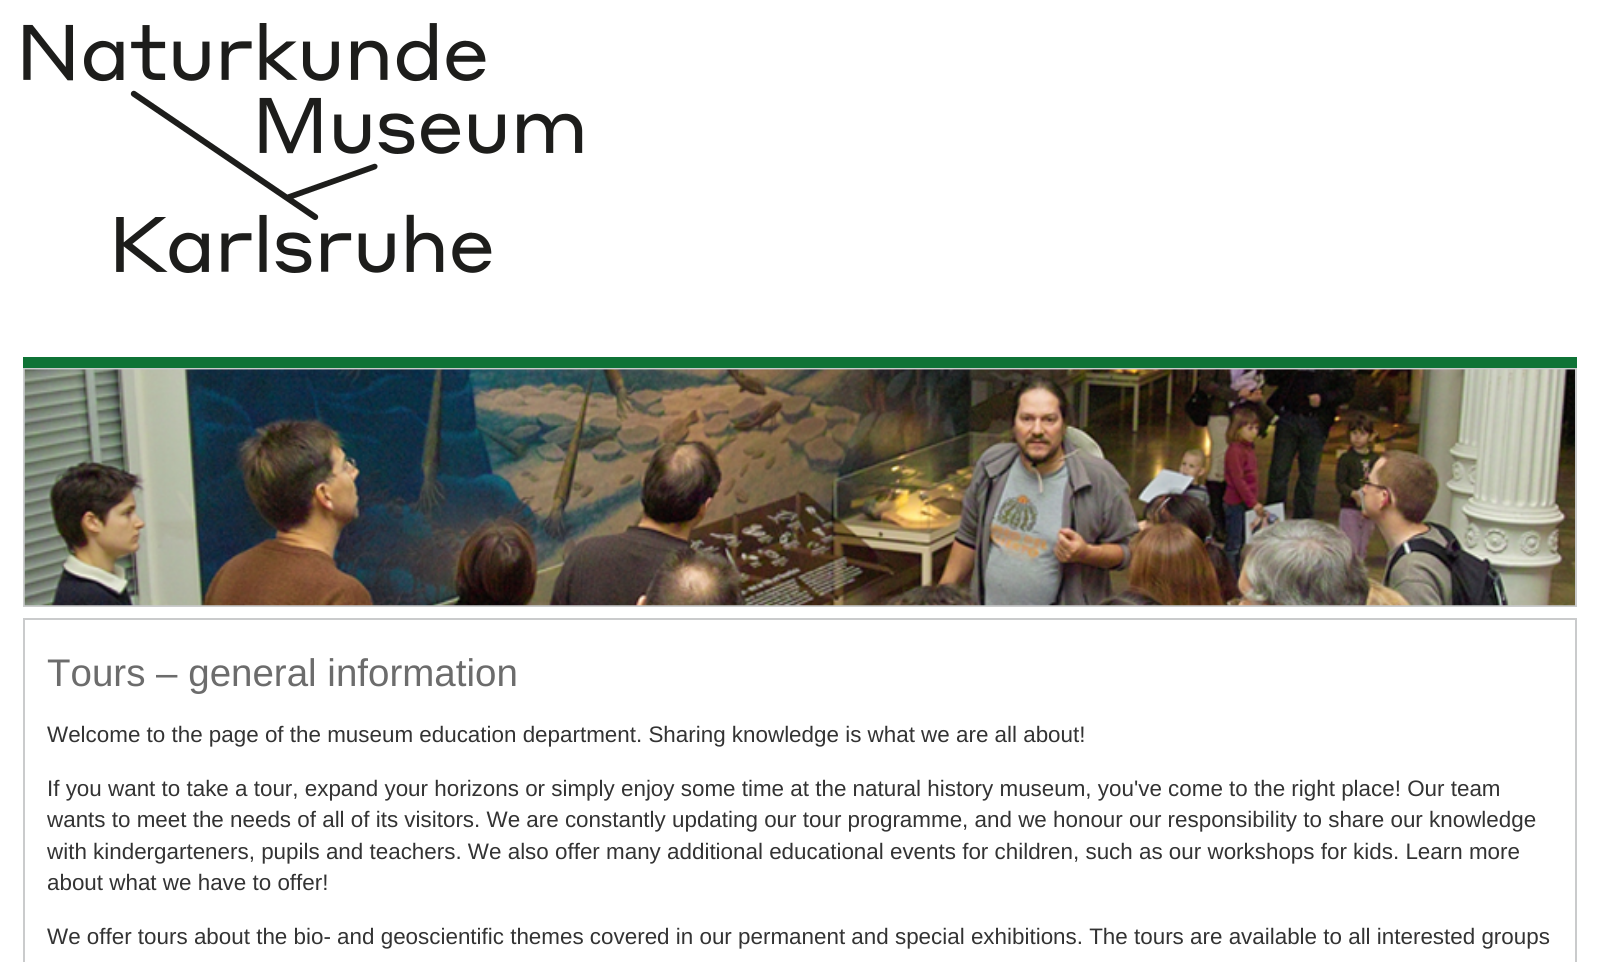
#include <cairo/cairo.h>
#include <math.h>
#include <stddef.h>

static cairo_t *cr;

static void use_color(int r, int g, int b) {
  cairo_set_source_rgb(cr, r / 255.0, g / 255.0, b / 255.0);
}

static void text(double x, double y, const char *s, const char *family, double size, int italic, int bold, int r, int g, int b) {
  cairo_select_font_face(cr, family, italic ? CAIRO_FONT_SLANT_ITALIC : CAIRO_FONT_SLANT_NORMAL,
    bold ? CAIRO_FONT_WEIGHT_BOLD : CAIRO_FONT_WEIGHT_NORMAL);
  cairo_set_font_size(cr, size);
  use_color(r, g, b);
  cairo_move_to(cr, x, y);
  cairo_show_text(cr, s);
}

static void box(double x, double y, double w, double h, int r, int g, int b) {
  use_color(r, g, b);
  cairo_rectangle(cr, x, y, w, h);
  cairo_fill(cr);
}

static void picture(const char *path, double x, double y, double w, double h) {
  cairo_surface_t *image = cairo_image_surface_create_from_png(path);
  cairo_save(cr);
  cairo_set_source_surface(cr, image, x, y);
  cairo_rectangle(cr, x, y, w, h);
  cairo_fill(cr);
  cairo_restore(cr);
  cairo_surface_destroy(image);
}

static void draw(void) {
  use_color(255, 255, 255);
  cairo_paint(cr);
  box(23, 357, 1554, 11, 15, 115, 54);
  picture("img_01.png", 23, 23, 560, 250);
  cairo_rectangle(cr, 24, 369, 1552, 237);
  use_color(202, 203, 204);
  cairo_stroke(cr);
  picture("img_02.png", 24, 369, 1551, 237);
  cairo_rectangle(cr, 24, 619, 1552, 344);
  cairo_stroke(cr);
  text(47, 686, "Tours – general information", "Liberation Sans", 38.5, 0, 0, 108, 108, 108);
  text(47, 742, "Welcome to the page of the museum education department. Sharing knowledge is what we are all about!", "Liberation Sans", 22.4, 0, 0, 51, 51, 51);
  text(47, 796, "If you want to take a tour, expand your horizons or simply enjoy some time at the natural history museum, you've come to the right place! Our team", "Liberation Sans", 22.4, 0, 0, 51, 51, 51);
  text(47, 827, "wants to meet the needs of all of its visitors. We are constantly updating our tour programme, and we honour our responsibility to share our knowledge", "Liberation Sans", 22.4, 0, 0, 51, 51, 51);
  text(47, 859, "with kindergarteners, pupils and teachers. We also offer many additional educational events for children, such as our workshops for kids. Learn more", "Liberation Sans", 22.4, 0, 0, 51, 51, 51);
  text(47, 890, "about what we have to offer!", "Liberation Sans", 22.4, 0, 0, 51, 51, 51);
  text(47, 944, "We offer tours about the bio- and geoscientific themes covered in our permanent and special exhibitions. The tours are available to all interested groups", "Liberation Sans", 22.4, 0, 0, 51, 51, 51);
}

int main(void) {
  cairo_surface_t *surface = cairo_image_surface_create(CAIRO_FORMAT_RGB24, 1599, 962);
  cr = cairo_create(surface);
  cairo_font_options_t *options = cairo_font_options_create();
  cairo_font_options_set_hint_metrics(options, CAIRO_HINT_METRICS_OFF);
  cairo_font_options_set_hint_style(options, CAIRO_HINT_STYLE_NONE);
  cairo_set_font_options(cr, options);
  cairo_set_miter_limit(cr, 4);
  draw();
  cairo_surface_write_to_png(surface, "out.png");
  cairo_font_options_destroy(options);
  cairo_destroy(cr);
  cairo_surface_destroy(surface);
  return 0;
}
